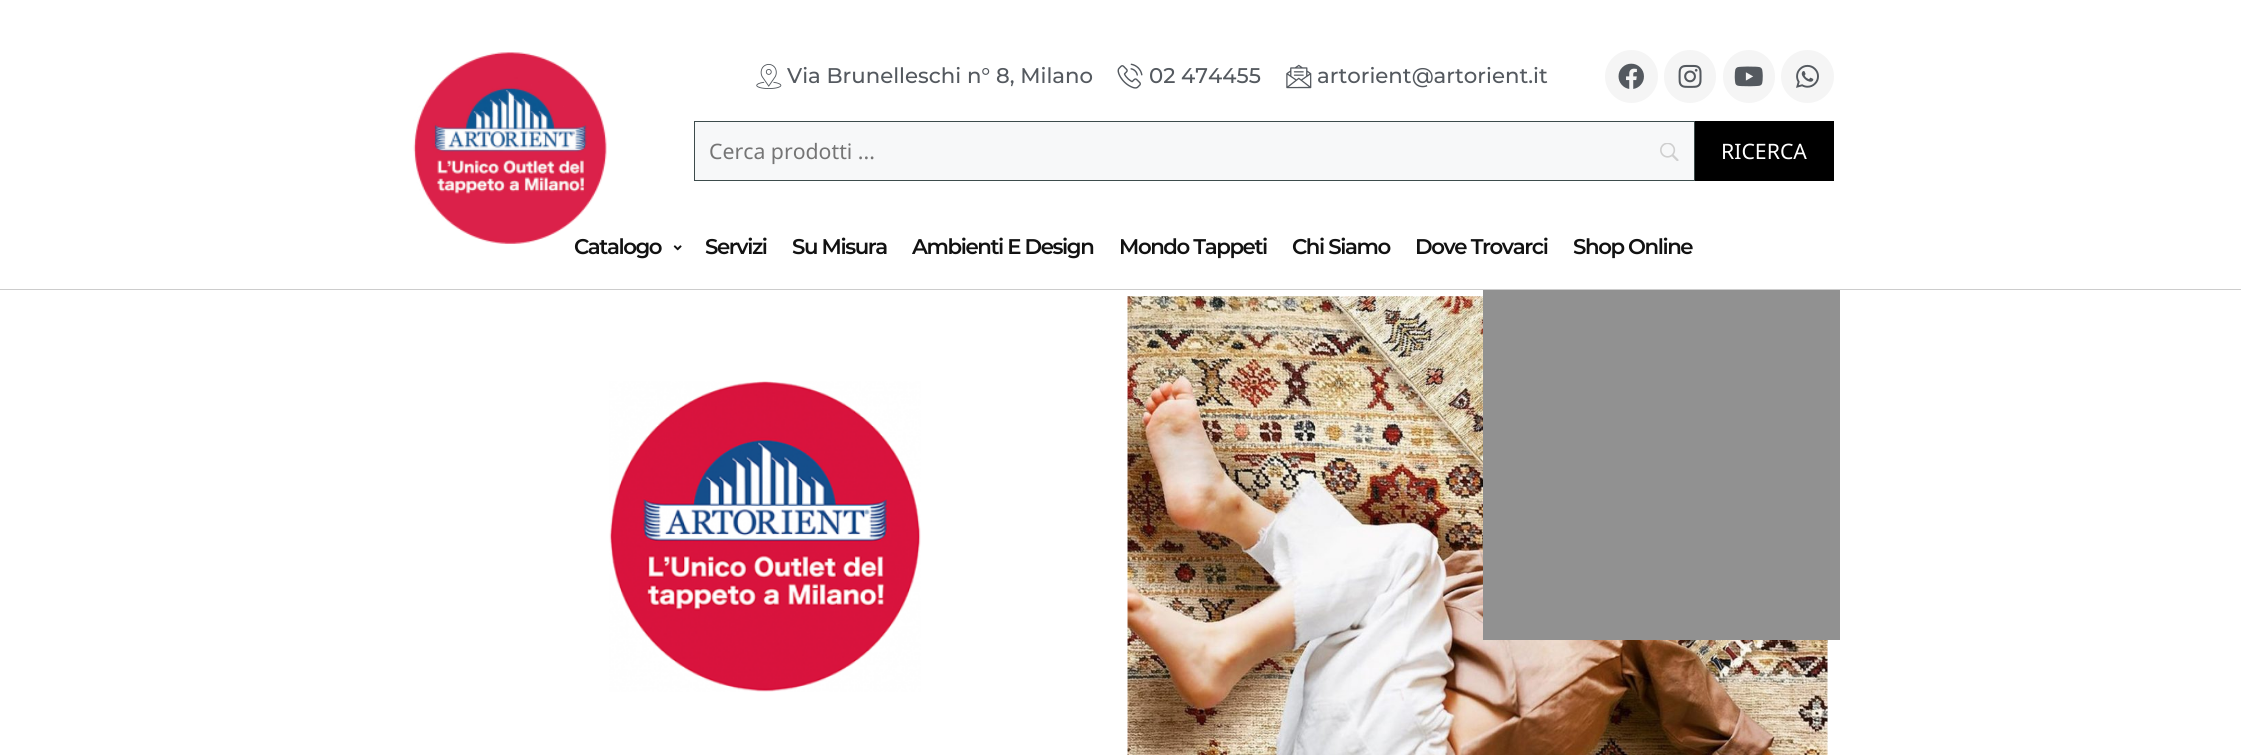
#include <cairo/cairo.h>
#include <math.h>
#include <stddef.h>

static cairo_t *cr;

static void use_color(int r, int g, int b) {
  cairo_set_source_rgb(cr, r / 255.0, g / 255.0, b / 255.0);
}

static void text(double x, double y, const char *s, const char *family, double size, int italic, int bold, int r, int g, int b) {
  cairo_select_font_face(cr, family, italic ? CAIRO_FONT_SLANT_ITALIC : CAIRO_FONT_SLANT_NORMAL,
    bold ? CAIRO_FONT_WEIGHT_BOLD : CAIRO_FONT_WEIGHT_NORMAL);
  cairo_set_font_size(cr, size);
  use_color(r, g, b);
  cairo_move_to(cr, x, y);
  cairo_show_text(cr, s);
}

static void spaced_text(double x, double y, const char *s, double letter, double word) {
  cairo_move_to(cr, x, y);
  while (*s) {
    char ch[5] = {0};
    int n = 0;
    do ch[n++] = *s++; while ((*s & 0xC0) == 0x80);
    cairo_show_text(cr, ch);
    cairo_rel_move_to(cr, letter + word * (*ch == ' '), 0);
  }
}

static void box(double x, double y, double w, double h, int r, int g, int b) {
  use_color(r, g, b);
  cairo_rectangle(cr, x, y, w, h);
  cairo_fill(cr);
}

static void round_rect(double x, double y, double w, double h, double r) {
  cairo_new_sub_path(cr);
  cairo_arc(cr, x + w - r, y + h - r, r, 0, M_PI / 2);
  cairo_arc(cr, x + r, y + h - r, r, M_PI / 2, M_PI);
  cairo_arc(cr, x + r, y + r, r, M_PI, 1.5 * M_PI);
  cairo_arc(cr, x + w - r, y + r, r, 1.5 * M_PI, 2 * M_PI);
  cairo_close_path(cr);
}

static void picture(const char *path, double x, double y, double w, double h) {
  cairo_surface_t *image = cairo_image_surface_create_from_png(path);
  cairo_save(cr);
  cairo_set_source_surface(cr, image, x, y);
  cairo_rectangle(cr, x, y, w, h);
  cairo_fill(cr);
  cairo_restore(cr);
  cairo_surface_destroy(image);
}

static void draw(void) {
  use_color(255, 255, 255);
  cairo_paint(cr);
  picture("img_02.png", 756, 63, 26, 26);
  picture("img_03.png", 1117, 63, 26, 26);
  picture("img_04.png", 1286, 64, 26, 25);
  use_color(245, 245, 245);
  cairo_arc(cr, 1631.5, 76.5, 26.5, 0, 2 * M_PI);
  cairo_fill(cr);
  picture("img_05.png", 1618, 63, 26, 26);
  round_rect(1664, 50, 52, 53, 26);
  cairo_fill(cr);
  picture("img_06.png", 1678, 64, 24, 24);
  round_rect(1723, 50, 52, 53, 26);
  cairo_fill(cr);
  picture("img_07.png", 1734, 66, 29, 21);
  cairo_arc(cr, 1807.5, 76.5, 26.5, 0, 2 * M_PI);
  cairo_fill(cr);
  picture("img_08.png", 1796, 64, 23, 24);
  box(695, 122, 999, 58, 247, 248, 249);
  picture("img_09.png", 1660, 143, 19, 18);
  cairo_rectangle(cr, 694.5, 121.5, 1000, 59);
  use_color(61, 76, 76);
  cairo_set_line_width(cr, 1);
  cairo_stroke(cr);
  box(1695, 121, 139, 60, 0, 0, 0);
  box(0, 289, 2241, 1, 204, 204, 204);
  picture("img_10.png", 673, 245, 9, 6);
  picture("img_11.png", 609, 381, 312, 311);
  picture("img_12.png", 1127, 296, 701, 459);
  box(1483, 290, 357, 350, 145, 145, 145);
  text(787, 83, "Via Brunelleschi n° 8, Milano", "Montserrat Medium", 21.25, 0, 0, 84, 89, 95);
  text(1149, 83, "02 474455", "Montserrat Medium", 21.25, 0, 0, 84, 89, 95);
  text(1317, 83, "artorient@artorient.it", "Montserrat Medium", 21.25, 0, 0, 84, 89, 95);
  text(709, 159, "Cerca prodotti ...", "Noto Sans", 21.25, 0, 0, 117, 117, 117);
  text(1721, 159, "RICERCA", "Noto Sans", 21.25, 0, 0, 255, 255, 255);
  cairo_select_font_face(cr, "Montserrat SemiBold", CAIRO_FONT_SLANT_NORMAL, CAIRO_FONT_WEIGHT_NORMAL);
  use_color(18, 18, 18);
  spaced_text(574, 254, "Catalogo", -1.4, 0);
  picture("img_01.png", 413, 52, 194, 192);
  spaced_text(705, 254, "Servizi", -1.4, 0);
  spaced_text(792, 254, "Su Misura", -1.4, 0);
  spaced_text(912, 254, "Ambienti E Design", -1.4, 0);
  spaced_text(1119, 254, "Mondo Tappeti", -1.4, 0);
  spaced_text(1292, 254, "Chi Siamo", -1.4, 0);
  spaced_text(1415, 254, "Dove Trovarci", -1.4, 0);
  spaced_text(1573, 254, "Shop Online", -1.4, 0);
}

int main(void) {
  cairo_surface_t *surface = cairo_image_surface_create(CAIRO_FORMAT_RGB24, 2241, 755);
  cr = cairo_create(surface);
  cairo_font_options_t *options = cairo_font_options_create();
  cairo_font_options_set_hint_metrics(options, CAIRO_HINT_METRICS_OFF);
  cairo_font_options_set_hint_style(options, CAIRO_HINT_STYLE_NONE);
  cairo_set_font_options(cr, options);
  cairo_set_miter_limit(cr, 4);
  draw();
  cairo_surface_write_to_png(surface, "out.png");
  cairo_font_options_destroy(options);
  cairo_destroy(cr);
  cairo_surface_destroy(surface);
  return 0;
}
